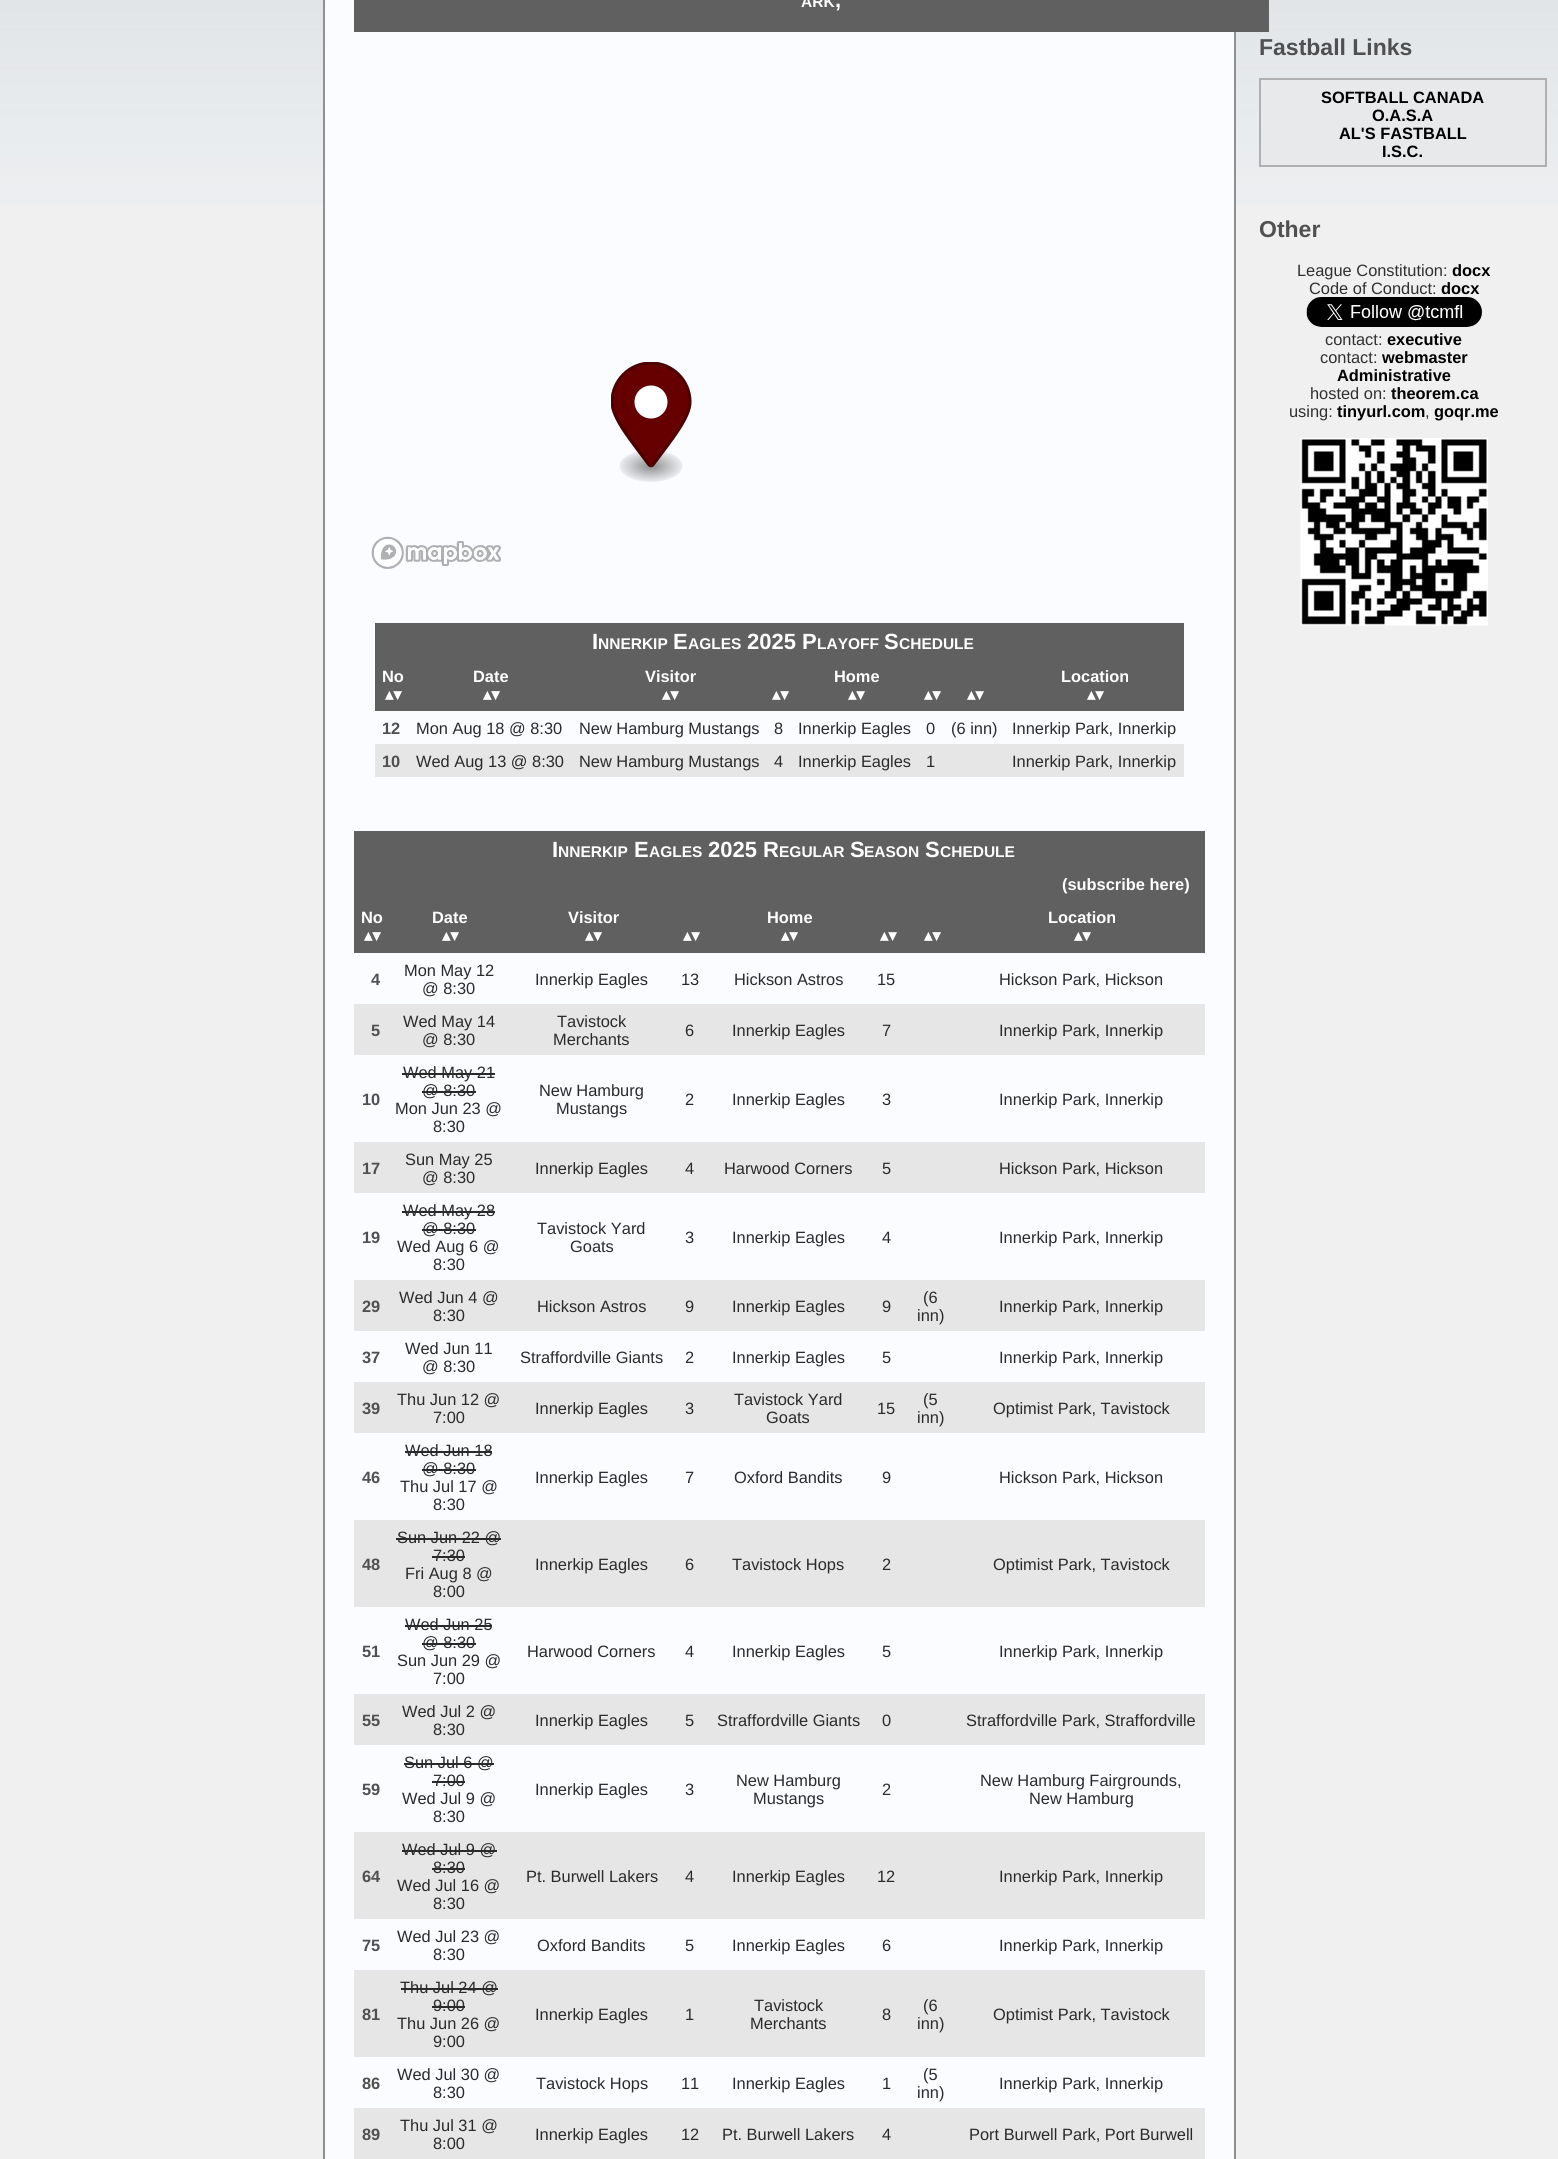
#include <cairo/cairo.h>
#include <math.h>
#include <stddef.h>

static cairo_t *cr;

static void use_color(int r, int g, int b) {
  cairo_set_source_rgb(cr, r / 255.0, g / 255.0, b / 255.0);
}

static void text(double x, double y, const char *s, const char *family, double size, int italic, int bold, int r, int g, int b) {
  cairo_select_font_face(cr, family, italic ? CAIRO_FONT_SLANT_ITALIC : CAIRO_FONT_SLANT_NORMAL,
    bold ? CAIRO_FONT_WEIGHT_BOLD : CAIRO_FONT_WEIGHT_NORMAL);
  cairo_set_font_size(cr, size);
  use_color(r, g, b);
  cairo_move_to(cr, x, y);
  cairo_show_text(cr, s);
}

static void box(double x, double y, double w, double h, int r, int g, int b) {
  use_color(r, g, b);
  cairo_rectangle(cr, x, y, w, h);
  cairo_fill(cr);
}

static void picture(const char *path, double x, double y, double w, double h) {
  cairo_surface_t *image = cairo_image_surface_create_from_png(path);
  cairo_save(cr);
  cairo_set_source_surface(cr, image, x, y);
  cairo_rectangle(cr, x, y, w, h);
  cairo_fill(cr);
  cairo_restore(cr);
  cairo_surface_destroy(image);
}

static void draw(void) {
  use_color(240, 240, 240);
  cairo_paint(cr);
  picture("img_01.png", 0, 0, 1558, 205);
  use_color(250, 252, 255);
  cairo_rectangle(cr, 324, -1, 911, 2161);
  cairo_fill_preserve(cr);
  use_color(144, 144, 144);
  cairo_stroke(cr);
  box(354, 0, 915, 32, 96, 96, 96);
  picture("img_02.png", 611, 362, 81, 120);
  picture("img_03.png", 371, 536, 130, 33);
  box(375, 623, 809, 88, 96, 96, 96);
  box(375, 744, 809, 33, 230, 230, 230);
  box(354, 831, 851, 122, 96, 96, 96);
  box(354, 1004, 851, 51, 230, 230, 230);
  box(402, 1073, 93, 2, 42, 42, 42);
  box(422, 1091, 54, 2, 42, 42, 42);
  box(354, 1142, 851, 51, 230, 230, 230);
  box(402, 1211, 93, 2, 42, 42, 42);
  box(422, 1229, 54, 2, 42, 42, 42);
  box(354, 1280, 851, 51, 230, 230, 230);
  box(354, 1382, 851, 51, 230, 230, 230);
  box(405, 1451, 87, 2, 42, 42, 42);
  box(422, 1469, 54, 2, 42, 42, 42);
  box(354, 1520, 851, 87, 230, 230, 230);
  box(396, 1538, 105, 2, 42, 42, 42);
  box(432, 1556, 33, 2, 42, 42, 42);
  box(405, 1625, 87, 2, 42, 42, 42);
  box(422, 1643, 54, 2, 42, 42, 42);
  box(354, 1694, 851, 51, 230, 230, 230);
  box(404, 1763, 90, 2, 42, 42, 42);
  box(432, 1781, 33, 2, 42, 42, 42);
  box(354, 1832, 851, 87, 230, 230, 230);
  box(402, 1850, 95, 2, 42, 42, 42);
  box(432, 1868, 33, 2, 42, 42, 42);
  box(354, 1970, 851, 87, 230, 230, 230);
  box(401, 1988, 97, 2, 42, 42, 42);
  box(432, 2006, 33, 2, 42, 42, 42);
  box(354, 2108, 851, 51, 230, 230, 230);
  use_color(232, 233, 234);
  cairo_rectangle(cr, 1260, 79, 286, 87);
  cairo_fill_preserve(cr);
  use_color(176, 176, 176);
  cairo_stroke(cr);
  picture("img_04.png", 1306, 297, 176, 30);
  picture("img_05.png", 1300, 438, 188, 188);
  text(801, 7, "ARK", "Liberation Sans", 15.5, 0, 1, 255, 255, 255);
  text(835, 7, ",", "Liberation Sans", 22, 0, 1, 255, 255, 255);
  text(592, 649, "I", "Liberation Sans", 22, 0, 1, 255, 255, 255);
  text(598, 649, "NNERKIP", "Liberation Sans", 15.5, 0, 1, 255, 255, 255);
  text(673, 649, "E", "Liberation Sans", 22, 0, 1, 255, 255, 255);
  text(688, 649, "AGLES", "Liberation Sans", 15.5, 0, 1, 255, 255, 255);
  text(747, 649, "2025 P", "Liberation Sans", 22, 0, 1, 255, 255, 255);
  text(817, 649, "LAYOFF", "Liberation Sans", 15.5, 0, 1, 255, 255, 255);
  text(884, 649, "S", "Liberation Sans", 22, 0, 1, 255, 255, 255);
  text(899, 649, "CHEDULE", "Liberation Sans", 15.5, 0, 1, 255, 255, 255);
  text(382, 682, "No", "Liberation Sans", 16.4, 0, 1, 255, 255, 255);
  text(385, 700, "▴▾", "DejaVu Sans", 16.4, 0, 1, 255, 255, 255);
  text(473, 682, "Date", "Liberation Sans", 16.4, 0, 1, 255, 255, 255);
  text(483, 700, "▴▾", "DejaVu Sans", 16.4, 0, 1, 255, 255, 255);
  text(645, 682, "Visitor", "Liberation Sans", 16.4, 0, 1, 255, 255, 255);
  text(662, 700, "▴▾", "DejaVu Sans", 16.4, 0, 1, 255, 255, 255);
  text(772, 700, "▴▾", "DejaVu Sans", 16.4, 0, 1, 255, 255, 255);
  text(834, 682, "Home", "Liberation Sans", 16.4, 0, 1, 255, 255, 255);
  text(848, 700, "▴▾", "DejaVu Sans", 16.4, 0, 1, 255, 255, 255);
  text(924, 700, "▴▾", "DejaVu Sans", 16.4, 0, 1, 255, 255, 255);
  text(967, 700, "▴▾", "DejaVu Sans", 16.4, 0, 1, 255, 255, 255);
  text(1061, 682, "Location", "Liberation Sans", 16.4, 0, 1, 255, 255, 255);
  text(1087, 700, "▴▾", "DejaVu Sans", 16.4, 0, 1, 255, 255, 255);
  text(382, 734, "12", "Liberation Sans", 16.4, 0, 1, 80, 80, 80);
  text(416, 734, "Mon Aug 18 @ 8:30", "Liberation Sans", 16.4, 0, 0, 42, 42, 42);
  text(579, 734, "New Hamburg Mustangs", "Liberation Sans", 16.4, 0, 0, 42, 42, 42);
  text(774, 734, "8", "Liberation Sans", 16.4, 0, 0, 42, 42, 42);
  text(798, 734, "Innerkip Eagles", "Liberation Sans", 16.4, 0, 0, 42, 42, 42);
  text(926, 734, "0", "Liberation Sans", 16.4, 0, 0, 42, 42, 42);
  text(951, 734, "(6 inn)", "Liberation Sans", 16.4, 0, 0, 42, 42, 42);
  text(1012, 734, "Innerkip Park, Innerkip", "Liberation Sans", 16.4, 0, 0, 42, 42, 42);
  text(382, 767, "10", "Liberation Sans", 16.4, 0, 1, 80, 80, 80);
  text(416, 767, "Wed Aug 13 @ 8:30", "Liberation Sans", 16.4, 0, 0, 42, 42, 42);
  text(579, 767, "New Hamburg Mustangs", "Liberation Sans", 16.4, 0, 0, 42, 42, 42);
  text(774, 767, "4", "Liberation Sans", 16.4, 0, 0, 42, 42, 42);
  text(798, 767, "Innerkip Eagles", "Liberation Sans", 16.4, 0, 0, 42, 42, 42);
  text(926, 767, "1", "Liberation Sans", 16.4, 0, 0, 42, 42, 42);
  text(1012, 767, "Innerkip Park, Innerkip", "Liberation Sans", 16.4, 0, 0, 42, 42, 42);
  text(552, 857, "I", "Liberation Sans", 22, 0, 1, 255, 255, 255);
  text(558, 857, "NNERKIP", "Liberation Sans", 15.5, 0, 1, 255, 255, 255);
  text(634, 857, "E", "Liberation Sans", 22, 0, 1, 255, 255, 255);
  text(649, 857, "AGLES", "Liberation Sans", 15.5, 0, 1, 255, 255, 255);
  text(708, 857, "2025 R", "Liberation Sans", 22, 0, 1, 255, 255, 255);
  text(779, 857, "EGULAR", "Liberation Sans", 15.5, 0, 1, 255, 255, 255);
  text(850, 857, "S", "Liberation Sans", 22, 0, 1, 255, 255, 255);
  text(864, 857, "EASON", "Liberation Sans", 15.5, 0, 1, 255, 255, 255);
  text(925, 857, "S", "Liberation Sans", 22, 0, 1, 255, 255, 255);
  text(940, 857, "CHEDULE", "Liberation Sans", 15.5, 0, 1, 255, 255, 255);
  text(1062, 890, "(subscribe here)", "Liberation Sans", 16.4, 0, 1, 255, 255, 255);
  text(361, 923, "No", "Liberation Sans", 16.4, 0, 1, 255, 255, 255);
  text(364, 941, "▴▾", "DejaVu Sans", 16.4, 0, 1, 255, 255, 255);
  text(432, 923, "Date", "Liberation Sans", 16.4, 0, 1, 255, 255, 255);
  text(442, 941, "▴▾", "DejaVu Sans", 16.4, 0, 1, 255, 255, 255);
  text(568, 923, "Visitor", "Liberation Sans", 16.4, 0, 1, 255, 255, 255);
  text(585, 941, "▴▾", "DejaVu Sans", 16.4, 0, 1, 255, 255, 255);
  text(683, 941, "▴▾", "DejaVu Sans", 16.4, 0, 1, 255, 255, 255);
  text(767, 923, "Home", "Liberation Sans", 16.4, 0, 1, 255, 255, 255);
  text(781, 941, "▴▾", "DejaVu Sans", 16.4, 0, 1, 255, 255, 255);
  text(880, 941, "▴▾", "DejaVu Sans", 16.4, 0, 1, 255, 255, 255);
  text(924, 941, "▴▾", "DejaVu Sans", 16.4, 0, 1, 255, 255, 255);
  text(1048, 923, "Location", "Liberation Sans", 16.4, 0, 1, 255, 255, 255);
  text(1074, 941, "▴▾", "DejaVu Sans", 16.4, 0, 1, 255, 255, 255);
  text(371, 985, "4", "Liberation Sans", 16.4, 0, 1, 80, 80, 80);
  text(404, 976, "Mon May 12", "Liberation Sans", 16.4, 0, 0, 42, 42, 42);
  text(422, 994, "@ 8:30", "Liberation Sans", 16.4, 0, 0, 42, 42, 42);
  text(535, 985, "Innerkip Eagles", "Liberation Sans", 16.4, 0, 0, 42, 42, 42);
  text(681, 985, "13", "Liberation Sans", 16.4, 0, 0, 42, 42, 42);
  text(734, 985, "Hickson Astros", "Liberation Sans", 16.4, 0, 0, 42, 42, 42);
  text(877, 985, "15", "Liberation Sans", 16.4, 0, 0, 42, 42, 42);
  text(999, 985, "Hickson Park, Hickson", "Liberation Sans", 16.4, 0, 0, 42, 42, 42);
  text(371, 1036, "5", "Liberation Sans", 16.4, 0, 1, 80, 80, 80);
  text(403, 1027, "Wed May 14", "Liberation Sans", 16.4, 0, 0, 42, 42, 42);
  text(422, 1045, "@ 8:30", "Liberation Sans", 16.4, 0, 0, 42, 42, 42);
  text(557, 1027, "Tavistock", "Liberation Sans", 16.4, 0, 0, 42, 42, 42);
  text(553, 1045, "Merchants", "Liberation Sans", 16.4, 0, 0, 42, 42, 42);
  text(685, 1036, "6", "Liberation Sans", 16.4, 0, 0, 42, 42, 42);
  text(732, 1036, "Innerkip Eagles", "Liberation Sans", 16.4, 0, 0, 42, 42, 42);
  text(882, 1036, "7", "Liberation Sans", 16.4, 0, 0, 42, 42, 42);
  text(999, 1036, "Innerkip Park, Innerkip", "Liberation Sans", 16.4, 0, 0, 42, 42, 42);
  text(362, 1105, "10", "Liberation Sans", 16.4, 0, 1, 80, 80, 80);
  text(403, 1078, "Wed May 21", "Liberation Sans", 16.4, 0, 0, 42, 42, 42);
  text(422, 1096, "@ 8:30", "Liberation Sans", 16.4, 0, 0, 42, 42, 42);
  text(395, 1114, "Mon Jun 23 @", "Liberation Sans", 16.4, 0, 0, 42, 42, 42);
  text(433, 1132, "8:30", "Liberation Sans", 16.4, 0, 0, 42, 42, 42);
  text(539, 1096, "New Hamburg", "Liberation Sans", 16.4, 0, 0, 42, 42, 42);
  text(556, 1114, "Mustangs", "Liberation Sans", 16.4, 0, 0, 42, 42, 42);
  text(685, 1105, "2", "Liberation Sans", 16.4, 0, 0, 42, 42, 42);
  text(732, 1105, "Innerkip Eagles", "Liberation Sans", 16.4, 0, 0, 42, 42, 42);
  text(882, 1105, "3", "Liberation Sans", 16.4, 0, 0, 42, 42, 42);
  text(999, 1105, "Innerkip Park, Innerkip", "Liberation Sans", 16.4, 0, 0, 42, 42, 42);
  text(362, 1174, "17", "Liberation Sans", 16.4, 0, 1, 80, 80, 80);
  text(405, 1165, "Sun May 25", "Liberation Sans", 16.4, 0, 0, 42, 42, 42);
  text(422, 1183, "@ 8:30", "Liberation Sans", 16.4, 0, 0, 42, 42, 42);
  text(535, 1174, "Innerkip Eagles", "Liberation Sans", 16.4, 0, 0, 42, 42, 42);
  text(685, 1174, "4", "Liberation Sans", 16.4, 0, 0, 42, 42, 42);
  text(724, 1174, "Harwood Corners", "Liberation Sans", 16.4, 0, 0, 42, 42, 42);
  text(882, 1174, "5", "Liberation Sans", 16.4, 0, 0, 42, 42, 42);
  text(999, 1174, "Hickson Park, Hickson", "Liberation Sans", 16.4, 0, 0, 42, 42, 42);
  text(362, 1243, "19", "Liberation Sans", 16.4, 0, 1, 80, 80, 80);
  text(403, 1216, "Wed May 28", "Liberation Sans", 16.4, 0, 0, 42, 42, 42);
  text(422, 1234, "@ 8:30", "Liberation Sans", 16.4, 0, 0, 42, 42, 42);
  text(397, 1252, "Wed Aug 6 @", "Liberation Sans", 16.4, 0, 0, 42, 42, 42);
  text(433, 1270, "8:30", "Liberation Sans", 16.4, 0, 0, 42, 42, 42);
  text(537, 1234, "Tavistock Yard", "Liberation Sans", 16.4, 0, 0, 42, 42, 42);
  text(570, 1252, "Goats", "Liberation Sans", 16.4, 0, 0, 42, 42, 42);
  text(685, 1243, "3", "Liberation Sans", 16.4, 0, 0, 42, 42, 42);
  text(732, 1243, "Innerkip Eagles", "Liberation Sans", 16.4, 0, 0, 42, 42, 42);
  text(882, 1243, "4", "Liberation Sans", 16.4, 0, 0, 42, 42, 42);
  text(999, 1243, "Innerkip Park, Innerkip", "Liberation Sans", 16.4, 0, 0, 42, 42, 42);
  text(362, 1312, "29", "Liberation Sans", 16.4, 0, 1, 80, 80, 80);
  text(399, 1303, "Wed Jun 4 @", "Liberation Sans", 16.4, 0, 0, 42, 42, 42);
  text(433, 1321, "8:30", "Liberation Sans", 16.4, 0, 0, 42, 42, 42);
  text(537, 1312, "Hickson Astros", "Liberation Sans", 16.4, 0, 0, 42, 42, 42);
  text(685, 1312, "9", "Liberation Sans", 16.4, 0, 0, 42, 42, 42);
  text(732, 1312, "Innerkip Eagles", "Liberation Sans", 16.4, 0, 0, 42, 42, 42);
  text(882, 1312, "9", "Liberation Sans", 16.4, 0, 0, 42, 42, 42);
  text(923, 1303, "(6", "Liberation Sans", 16.4, 0, 0, 42, 42, 42);
  text(917, 1321, "inn)", "Liberation Sans", 16.4, 0, 0, 42, 42, 42);
  text(999, 1312, "Innerkip Park, Innerkip", "Liberation Sans", 16.4, 0, 0, 42, 42, 42);
  text(362, 1363, "37", "Liberation Sans", 16.4, 0, 1, 80, 80, 80);
  text(405, 1354, "Wed Jun 11", "Liberation Sans", 16.4, 0, 0, 42, 42, 42);
  text(422, 1372, "@ 8:30", "Liberation Sans", 16.4, 0, 0, 42, 42, 42);
  text(520, 1363, "Straffordville Giants", "Liberation Sans", 16.4, 0, 0, 42, 42, 42);
  text(685, 1363, "2", "Liberation Sans", 16.4, 0, 0, 42, 42, 42);
  text(732, 1363, "Innerkip Eagles", "Liberation Sans", 16.4, 0, 0, 42, 42, 42);
  text(882, 1363, "5", "Liberation Sans", 16.4, 0, 0, 42, 42, 42);
  text(999, 1363, "Innerkip Park, Innerkip", "Liberation Sans", 16.4, 0, 0, 42, 42, 42);
  text(362, 1414, "39", "Liberation Sans", 16.4, 0, 1, 80, 80, 80);
  text(397, 1405, "Thu Jun 12 @", "Liberation Sans", 16.4, 0, 0, 42, 42, 42);
  text(433, 1423, "7:00", "Liberation Sans", 16.4, 0, 0, 42, 42, 42);
  text(535, 1414, "Innerkip Eagles", "Liberation Sans", 16.4, 0, 0, 42, 42, 42);
  text(685, 1414, "3", "Liberation Sans", 16.4, 0, 0, 42, 42, 42);
  text(734, 1405, "Tavistock Yard", "Liberation Sans", 16.4, 0, 0, 42, 42, 42);
  text(766, 1423, "Goats", "Liberation Sans", 16.4, 0, 0, 42, 42, 42);
  text(877, 1414, "15", "Liberation Sans", 16.4, 0, 0, 42, 42, 42);
  text(923, 1405, "(5", "Liberation Sans", 16.4, 0, 0, 42, 42, 42);
  text(917, 1423, "inn)", "Liberation Sans", 16.4, 0, 0, 42, 42, 42);
  text(993, 1414, "Optimist Park, Tavistock", "Liberation Sans", 16.4, 0, 0, 42, 42, 42);
  text(362, 1483, "46", "Liberation Sans", 16.4, 0, 1, 80, 80, 80);
  text(405, 1456, "Wed Jun 18", "Liberation Sans", 16.4, 0, 0, 42, 42, 42);
  text(422, 1474, "@ 8:30", "Liberation Sans", 16.4, 0, 0, 42, 42, 42);
  text(400, 1492, "Thu Jul 17 @", "Liberation Sans", 16.4, 0, 0, 42, 42, 42);
  text(433, 1510, "8:30", "Liberation Sans", 16.4, 0, 0, 42, 42, 42);
  text(535, 1483, "Innerkip Eagles", "Liberation Sans", 16.4, 0, 0, 42, 42, 42);
  text(685, 1483, "7", "Liberation Sans", 16.4, 0, 0, 42, 42, 42);
  text(734, 1483, "Oxford Bandits", "Liberation Sans", 16.4, 0, 0, 42, 42, 42);
  text(882, 1483, "9", "Liberation Sans", 16.4, 0, 0, 42, 42, 42);
  text(999, 1483, "Hickson Park, Hickson", "Liberation Sans", 16.4, 0, 0, 42, 42, 42);
  text(362, 1570, "48", "Liberation Sans", 16.4, 0, 1, 80, 80, 80);
  text(397, 1543, "Sun Jun 22 @", "Liberation Sans", 16.4, 0, 0, 42, 42, 42);
  text(433, 1561, "7:30", "Liberation Sans", 16.4, 0, 0, 42, 42, 42);
  text(405, 1579, "Fri Aug 8 @", "Liberation Sans", 16.4, 0, 0, 42, 42, 42);
  text(433, 1597, "8:00", "Liberation Sans", 16.4, 0, 0, 42, 42, 42);
  text(535, 1570, "Innerkip Eagles", "Liberation Sans", 16.4, 0, 0, 42, 42, 42);
  text(685, 1570, "6", "Liberation Sans", 16.4, 0, 0, 42, 42, 42);
  text(732, 1570, "Tavistock Hops", "Liberation Sans", 16.4, 0, 0, 42, 42, 42);
  text(882, 1570, "2", "Liberation Sans", 16.4, 0, 0, 42, 42, 42);
  text(993, 1570, "Optimist Park, Tavistock", "Liberation Sans", 16.4, 0, 0, 42, 42, 42);
  text(362, 1657, "51", "Liberation Sans", 16.4, 0, 1, 80, 80, 80);
  text(405, 1630, "Wed Jun 25", "Liberation Sans", 16.4, 0, 0, 42, 42, 42);
  text(422, 1648, "@ 8:30", "Liberation Sans", 16.4, 0, 0, 42, 42, 42);
  text(397, 1666, "Sun Jun 29 @", "Liberation Sans", 16.4, 0, 0, 42, 42, 42);
  text(433, 1684, "7:00", "Liberation Sans", 16.4, 0, 0, 42, 42, 42);
  text(527, 1657, "Harwood Corners", "Liberation Sans", 16.4, 0, 0, 42, 42, 42);
  text(685, 1657, "4", "Liberation Sans", 16.4, 0, 0, 42, 42, 42);
  text(732, 1657, "Innerkip Eagles", "Liberation Sans", 16.4, 0, 0, 42, 42, 42);
  text(882, 1657, "5", "Liberation Sans", 16.4, 0, 0, 42, 42, 42);
  text(999, 1657, "Innerkip Park, Innerkip", "Liberation Sans", 16.4, 0, 0, 42, 42, 42);
  text(362, 1726, "55", "Liberation Sans", 16.4, 0, 1, 80, 80, 80);
  text(402, 1717, "Wed Jul 2 @", "Liberation Sans", 16.4, 0, 0, 42, 42, 42);
  text(433, 1735, "8:30", "Liberation Sans", 16.4, 0, 0, 42, 42, 42);
  text(535, 1726, "Innerkip Eagles", "Liberation Sans", 16.4, 0, 0, 42, 42, 42);
  text(685, 1726, "5", "Liberation Sans", 16.4, 0, 0, 42, 42, 42);
  text(717, 1726, "Straffordville Giants", "Liberation Sans", 16.4, 0, 0, 42, 42, 42);
  text(882, 1726, "0", "Liberation Sans", 16.4, 0, 0, 42, 42, 42);
  text(966, 1726, "Straffordville Park, Straffordville", "Liberation Sans", 16.4, 0, 0, 42, 42, 42);
  text(362, 1795, "59", "Liberation Sans", 16.4, 0, 1, 80, 80, 80);
  text(404, 1768, "Sun Jul 6 @", "Liberation Sans", 16.4, 0, 0, 42, 42, 42);
  text(433, 1786, "7:00", "Liberation Sans", 16.4, 0, 0, 42, 42, 42);
  text(402, 1804, "Wed Jul 9 @", "Liberation Sans", 16.4, 0, 0, 42, 42, 42);
  text(433, 1822, "8:30", "Liberation Sans", 16.4, 0, 0, 42, 42, 42);
  text(535, 1795, "Innerkip Eagles", "Liberation Sans", 16.4, 0, 0, 42, 42, 42);
  text(685, 1795, "3", "Liberation Sans", 16.4, 0, 0, 42, 42, 42);
  text(736, 1786, "New Hamburg", "Liberation Sans", 16.4, 0, 0, 42, 42, 42);
  text(753, 1804, "Mustangs", "Liberation Sans", 16.4, 0, 0, 42, 42, 42);
  text(882, 1795, "2", "Liberation Sans", 16.4, 0, 0, 42, 42, 42);
  text(980, 1786, "New Hamburg Fairgrounds,", "Liberation Sans", 16.4, 0, 0, 42, 42, 42);
  text(1029, 1804, "New Hamburg", "Liberation Sans", 16.4, 0, 0, 42, 42, 42);
  text(362, 1882, "64", "Liberation Sans", 16.4, 0, 1, 80, 80, 80);
  text(402, 1855, "Wed Jul 9 @", "Liberation Sans", 16.4, 0, 0, 42, 42, 42);
  text(433, 1873, "8:30", "Liberation Sans", 16.4, 0, 0, 42, 42, 42);
  text(397, 1891, "Wed Jul 16 @", "Liberation Sans", 16.4, 0, 0, 42, 42, 42);
  text(433, 1909, "8:30", "Liberation Sans", 16.4, 0, 0, 42, 42, 42);
  text(526, 1882, "Pt. Burwell Lakers", "Liberation Sans", 16.4, 0, 0, 42, 42, 42);
  text(685, 1882, "4", "Liberation Sans", 16.4, 0, 0, 42, 42, 42);
  text(732, 1882, "Innerkip Eagles", "Liberation Sans", 16.4, 0, 0, 42, 42, 42);
  text(877, 1882, "12", "Liberation Sans", 16.4, 0, 0, 42, 42, 42);
  text(999, 1882, "Innerkip Park, Innerkip", "Liberation Sans", 16.4, 0, 0, 42, 42, 42);
  text(362, 1951, "75", "Liberation Sans", 16.4, 0, 1, 80, 80, 80);
  text(397, 1942, "Wed Jul 23 @", "Liberation Sans", 16.4, 0, 0, 42, 42, 42);
  text(433, 1960, "8:30", "Liberation Sans", 16.4, 0, 0, 42, 42, 42);
  text(537, 1951, "Oxford Bandits", "Liberation Sans", 16.4, 0, 0, 42, 42, 42);
  text(685, 1951, "5", "Liberation Sans", 16.4, 0, 0, 42, 42, 42);
  text(732, 1951, "Innerkip Eagles", "Liberation Sans", 16.4, 0, 0, 42, 42, 42);
  text(882, 1951, "6", "Liberation Sans", 16.4, 0, 0, 42, 42, 42);
  text(999, 1951, "Innerkip Park, Innerkip", "Liberation Sans", 16.4, 0, 0, 42, 42, 42);
  text(362, 2020, "81", "Liberation Sans", 16.4, 0, 1, 80, 80, 80);
  text(400, 1993, "Thu Jul 24 @", "Liberation Sans", 16.4, 0, 0, 42, 42, 42);
  text(433, 2011, "9:00", "Liberation Sans", 16.4, 0, 0, 42, 42, 42);
  text(397, 2029, "Thu Jun 26 @", "Liberation Sans", 16.4, 0, 0, 42, 42, 42);
  text(433, 2047, "9:00", "Liberation Sans", 16.4, 0, 0, 42, 42, 42);
  text(535, 2020, "Innerkip Eagles", "Liberation Sans", 16.4, 0, 0, 42, 42, 42);
  text(685, 2020, "1", "Liberation Sans", 16.4, 0, 0, 42, 42, 42);
  text(754, 2011, "Tavistock", "Liberation Sans", 16.4, 0, 0, 42, 42, 42);
  text(750, 2029, "Merchants", "Liberation Sans", 16.4, 0, 0, 42, 42, 42);
  text(882, 2020, "8", "Liberation Sans", 16.4, 0, 0, 42, 42, 42);
  text(923, 2011, "(6", "Liberation Sans", 16.4, 0, 0, 42, 42, 42);
  text(917, 2029, "inn)", "Liberation Sans", 16.4, 0, 0, 42, 42, 42);
  text(993, 2020, "Optimist Park, Tavistock", "Liberation Sans", 16.4, 0, 0, 42, 42, 42);
  text(362, 2089, "86", "Liberation Sans", 16.4, 0, 1, 80, 80, 80);
  text(397, 2080, "Wed Jul 30 @", "Liberation Sans", 16.4, 0, 0, 42, 42, 42);
  text(433, 2098, "8:30", "Liberation Sans", 16.4, 0, 0, 42, 42, 42);
  text(536, 2089, "Tavistock Hops", "Liberation Sans", 16.4, 0, 0, 42, 42, 42);
  text(681, 2089, "11", "Liberation Sans", 16.4, 0, 0, 42, 42, 42);
  text(732, 2089, "Innerkip Eagles", "Liberation Sans", 16.4, 0, 0, 42, 42, 42);
  text(882, 2089, "1", "Liberation Sans", 16.4, 0, 0, 42, 42, 42);
  text(923, 2080, "(5", "Liberation Sans", 16.4, 0, 0, 42, 42, 42);
  text(917, 2098, "inn)", "Liberation Sans", 16.4, 0, 0, 42, 42, 42);
  text(999, 2089, "Innerkip Park, Innerkip", "Liberation Sans", 16.4, 0, 0, 42, 42, 42);
  text(362, 2140, "89", "Liberation Sans", 16.4, 0, 1, 80, 80, 80);
  text(400, 2131, "Thu Jul 31 @", "Liberation Sans", 16.4, 0, 0, 42, 42, 42);
  text(433, 2149, "8:00", "Liberation Sans", 16.4, 0, 0, 42, 42, 42);
  text(535, 2140, "Innerkip Eagles", "Liberation Sans", 16.4, 0, 0, 42, 42, 42);
  text(681, 2140, "12", "Liberation Sans", 16.4, 0, 0, 42, 42, 42);
  text(722, 2140, "Pt. Burwell Lakers", "Liberation Sans", 16.4, 0, 0, 42, 42, 42);
  text(882, 2140, "4", "Liberation Sans", 16.4, 0, 0, 42, 42, 42);
  text(969, 2140, "Port Burwell Park, Port Burwell", "Liberation Sans", 16.4, 0, 0, 42, 42, 42);
  text(1259, 55, "Fastball Links", "Liberation Sans", 23, 0, 1, 80, 80, 80);
  text(1321, 103, "SOFTBALL CANADA", "Liberation Sans", 16.4, 0, 1, 0, 0, 0);
  text(1372, 121, "O.A.S.A", "Liberation Sans", 16.4, 0, 1, 0, 0, 0);
  text(1339, 139, "AL'S FASTBALL", "Liberation Sans", 16.4, 0, 1, 0, 0, 0);
  text(1382, 157, "I.S.C.", "Liberation Sans", 16.4, 0, 1, 0, 0, 0);
  text(1259, 237, "Other", "Liberation Sans", 23, 0, 1, 80, 80, 80);
  text(1297, 276, "League Constitution:", "Liberation Sans", 16.4, 0, 0, 48, 48, 48);
  text(1452, 276, "docx", "Liberation Sans", 16.4, 0, 1, 0, 0, 0);
  text(1309, 294, "Code of Conduct:", "Liberation Sans", 16.4, 0, 0, 48, 48, 48);
  text(1441, 294, "docx", "Liberation Sans", 16.4, 0, 1, 0, 0, 0);
  text(1325, 345, "contact:", "Liberation Sans", 16.4, 0, 0, 48, 48, 48);
  text(1387, 345, "executive", "Liberation Sans", 16.4, 0, 1, 0, 0, 0);
  text(1320, 363, "contact:", "Liberation Sans", 16.4, 0, 0, 48, 48, 48);
  text(1382, 363, "webmaster", "Liberation Sans", 16.4, 0, 1, 0, 0, 0);
  text(1337, 381, "Administrative", "Liberation Sans", 16.4, 0, 1, 0, 0, 0);
  text(1310, 399, "hosted on:", "Liberation Sans", 16.4, 0, 0, 48, 48, 48);
  text(1391, 399, "theorem.ca", "Liberation Sans", 16.4, 0, 1, 0, 0, 0);
  text(1289, 417, "using:", "Liberation Sans", 16.4, 0, 0, 48, 48, 48);
  text(1337, 417, "tinyurl.com", "Liberation Sans", 16.4, 0, 1, 0, 0, 0);
  text(1425, 417, ",", "Liberation Sans", 16.4, 0, 0, 48, 48, 48);
  text(1434, 417, "goqr.me", "Liberation Sans", 16.4, 0, 1, 0, 0, 0);
}

int main(void) {
  cairo_surface_t *surface = cairo_image_surface_create(CAIRO_FORMAT_RGB24, 1558, 2159);
  cr = cairo_create(surface);
  cairo_font_options_t *options = cairo_font_options_create();
  cairo_font_options_set_hint_metrics(options, CAIRO_HINT_METRICS_OFF);
  cairo_font_options_set_hint_style(options, CAIRO_HINT_STYLE_NONE);
  cairo_set_font_options(cr, options);
  cairo_set_miter_limit(cr, 4);
  draw();
  cairo_surface_write_to_png(surface, "out.png");
  cairo_font_options_destroy(options);
  cairo_destroy(cr);
  cairo_surface_destroy(surface);
  return 0;
}
